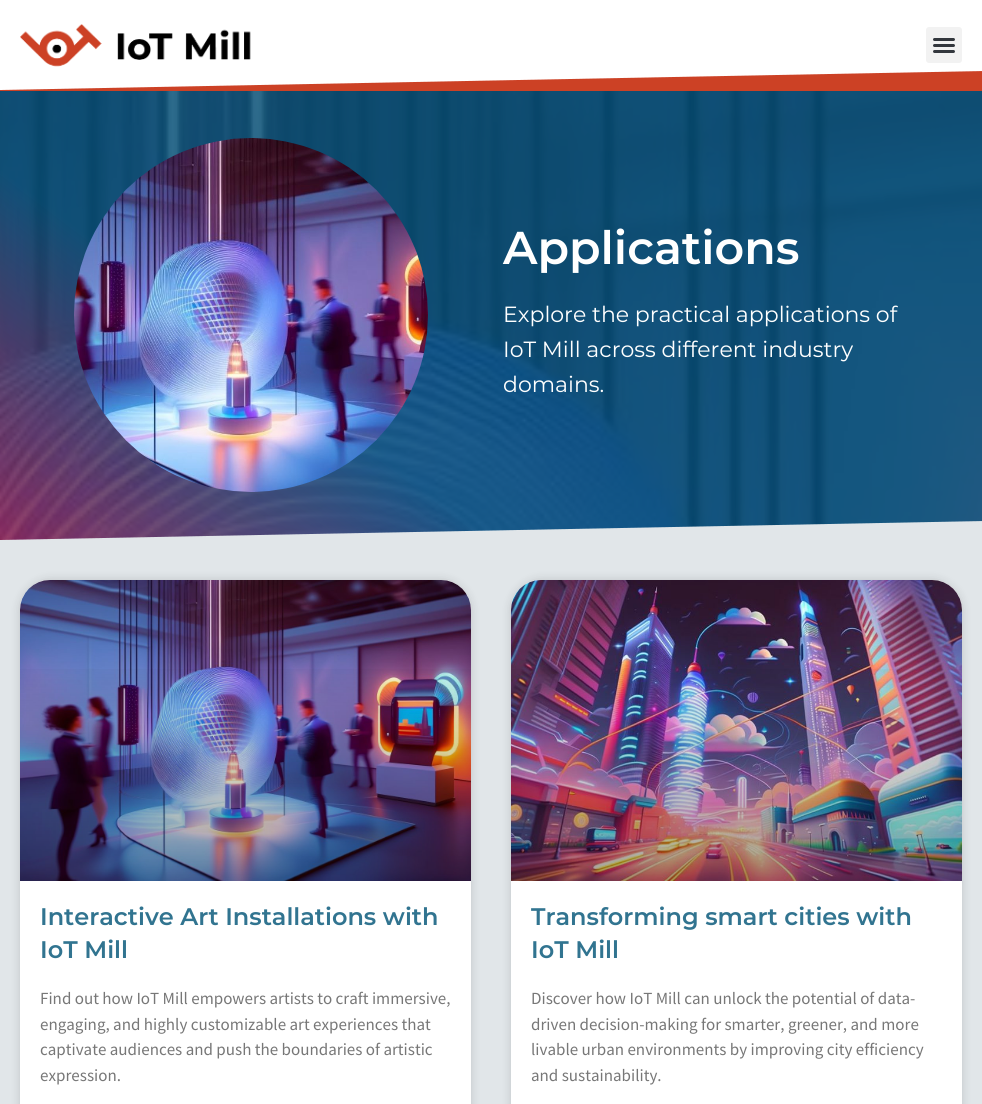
#include <cairo/cairo.h>
#include <math.h>
#include <stddef.h>

static cairo_t *cr;

static void use_color(int r, int g, int b) {
  cairo_set_source_rgb(cr, r / 255.0, g / 255.0, b / 255.0);
}

static void text(double x, double y, const char *s, const char *family, double size, int italic, int bold, int r, int g, int b) {
  cairo_select_font_face(cr, family, italic ? CAIRO_FONT_SLANT_ITALIC : CAIRO_FONT_SLANT_NORMAL,
    bold ? CAIRO_FONT_WEIGHT_BOLD : CAIRO_FONT_WEIGHT_NORMAL);
  cairo_set_font_size(cr, size);
  use_color(r, g, b);
  cairo_move_to(cr, x, y);
  cairo_show_text(cr, s);
}

static void box(double x, double y, double w, double h, int r, int g, int b) {
  use_color(r, g, b);
  cairo_rectangle(cr, x, y, w, h);
  cairo_fill(cr);
}

static void round_rect(double x, double y, double w, double h, double r) {
  cairo_new_sub_path(cr);
  cairo_arc(cr, x + w - r, y + h - r, r, 0, M_PI / 2);
  cairo_arc(cr, x + r, y + h - r, r, M_PI / 2, M_PI);
  cairo_arc(cr, x + r, y + r, r, M_PI, 1.5 * M_PI);
  cairo_arc(cr, x + w - r, y + r, r, 1.5 * M_PI, 2 * M_PI);
  cairo_close_path(cr);
}

static void shadow(double x, double y, double w, double h, double r, double blur, double alpha) {
  cairo_push_group_with_content(cr, CAIRO_CONTENT_ALPHA);
  cairo_set_operator(cr, CAIRO_OPERATOR_SOURCE);
  for (int i = 15; i >= -15 && fmin(w, h) + blur * i / 3 > 0; i -= 2) {
    double e = blur * i / 6;
    cairo_set_source_rgba(cr, 0, 0, 0, alpha * erfc((i - 1) / 8.5) / 2);
    round_rect(x - e, y - e, w + 2 * e, h + 2 * e, fmax(0, fmin(r + e + blur * .6, fmin(w, h) / 2 + e)));
    cairo_fill(cr);
  }
  cairo_pattern_t *soft = cairo_pop_group(cr);
  cairo_mask(cr, soft);
  cairo_pattern_destroy(soft);
}

static void picture(const char *path, double x, double y, double w, double h) {
  cairo_surface_t *image = cairo_image_surface_create_from_png(path);
  cairo_save(cr);
  cairo_set_source_surface(cr, image, x, y);
  cairo_rectangle(cr, x, y, w, h);
  cairo_fill(cr);
  cairo_restore(cr);
  cairo_surface_destroy(image);
}

static void draw(void) {
  cairo_pattern_t *gradient;
  use_color(255, 255, 255);
  cairo_paint(cr);
  picture("img_01.png", 20, 24, 231, 43);
  use_color(242, 242, 242);
  round_rect(926, 27, 36, 36, 3);
  cairo_fill(cr);
  picture("img_02.png", 933, 38, 22, 15);
  use_color(204, 65, 37);
  cairo_new_path(cr);
  cairo_move_to(cr, -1, 90);
  cairo_line_to(cr, -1, 91);
  cairo_line_to(cr, 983, 91);
  cairo_line_to(cr, 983, 71);
  cairo_close_path(cr);
  cairo_fill(cr);
  picture("img_03.png", 0, 91, 982, 449);
  picture("img_04.png", 74, 138, 354, 354);
  use_color(225, 230, 233);
  cairo_new_path(cr);
  cairo_move_to(cr, -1, 540);
  cairo_line_to(cr, -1, 541);
  cairo_line_to(cr, 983, 541);
  cairo_line_to(cr, 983, 521);
  cairo_close_path(cr);
  cairo_fill(cr);
  box(0, 541, 982, 563, 225, 230, 233);
  use_color(0, 0, 0);
  shadow(20, 580, 451, 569, 30, 5, 0.15);
  use_color(255, 255, 255);
  round_rect(20, 580, 451, 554, 30);
  cairo_fill(cr);
  picture("img_05.png", 20, 580, 451, 301);
  gradient = cairo_pattern_create_linear(246, 881, 246, 580);
  cairo_pattern_add_color_stop_rgba(gradient, 0, 0, 0, 0, 0.35);
  cairo_pattern_add_color_stop_rgba(gradient, 0.75, 0, 0, 0, 0);
  cairo_set_source(cr, gradient);
  cairo_pattern_destroy(gradient);
  cairo_rectangle(cr, 20, 669, 451, 212);
  cairo_fill(cr);
  use_color(0, 0, 0);
  shadow(511, 580, 451, 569, 30, 5, 0.15);
  use_color(255, 255, 255);
  round_rect(511, 580, 451, 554, 30);
  cairo_fill(cr);
  picture("img_06.png", 511, 580, 451, 301);
  gradient = cairo_pattern_create_linear(737, 881, 737, 580);
  cairo_pattern_add_color_stop_rgba(gradient, 0, 0, 0, 0, 0.35);
  cairo_pattern_add_color_stop_rgba(gradient, 0.75, 0, 0, 0, 0);
  cairo_set_source(cr, gradient);
  cairo_pattern_destroy(gradient);
  cairo_rectangle(cr, 511, 669, 451, 212);
  cairo_fill(cr);
  text(503, 264, "Applications", "Montserrat SemiBold", 46, 0, 0, 255, 255, 255);
  text(503, 322, "Explore the practical applications of", "Montserrat", 22, 0, 0, 255, 255, 255);
  text(503, 357, "IoT Mill across different industry", "Montserrat", 22, 0, 0, 255, 255, 255);
  text(503, 392, "domains.", "Montserrat", 22, 0, 0, 255, 255, 255);
  text(40, 925, "Interactive Art Installations with", "Montserrat SemiBold", 24, 0, 0, 49, 116, 144);
  text(40, 958, "IoT Mill", "Montserrat SemiBold", 24, 0, 0, 49, 116, 144);
  text(40, 1004, "Find out how IoT Mill empowers artists to craft immersive,", "Source Sans Pro", 17, 0, 0, 119, 119, 119);
  text(40, 1030, "engaging, and highly customizable art experiences that", "Source Sans Pro", 17, 0, 0, 119, 119, 119);
  text(40, 1055, "captivate audiences and push the boundaries of artistic", "Source Sans Pro", 17, 0, 0, 119, 119, 119);
  text(40, 1081, "expression.", "Source Sans Pro", 17, 0, 0, 119, 119, 119);
  text(531, 925, "Transforming smart cities with", "Montserrat SemiBold", 24, 0, 0, 49, 116, 144);
  text(531, 958, "IoT Mill", "Montserrat SemiBold", 24, 0, 0, 49, 116, 144);
  text(531, 1004, "Discover how IoT Mill can unlock the potential of data-", "Source Sans Pro", 17, 0, 0, 119, 119, 119);
  text(531, 1030, "driven decision-making for smarter, greener, and more", "Source Sans Pro", 17, 0, 0, 119, 119, 119);
  text(531, 1055, "livable urban environments by improving city efficiency", "Source Sans Pro", 17, 0, 0, 119, 119, 119);
  text(531, 1081, "and sustainability.", "Source Sans Pro", 17, 0, 0, 119, 119, 119);
}

int main(void) {
  cairo_surface_t *surface = cairo_image_surface_create(CAIRO_FORMAT_RGB24, 982, 1104);
  cr = cairo_create(surface);
  cairo_font_options_t *options = cairo_font_options_create();
  cairo_font_options_set_hint_metrics(options, CAIRO_HINT_METRICS_OFF);
  cairo_font_options_set_hint_style(options, CAIRO_HINT_STYLE_NONE);
  cairo_set_font_options(cr, options);
  cairo_set_miter_limit(cr, 4);
  draw();
  cairo_surface_write_to_png(surface, "out.png");
  cairo_font_options_destroy(options);
  cairo_destroy(cr);
  cairo_surface_destroy(surface);
  return 0;
}
